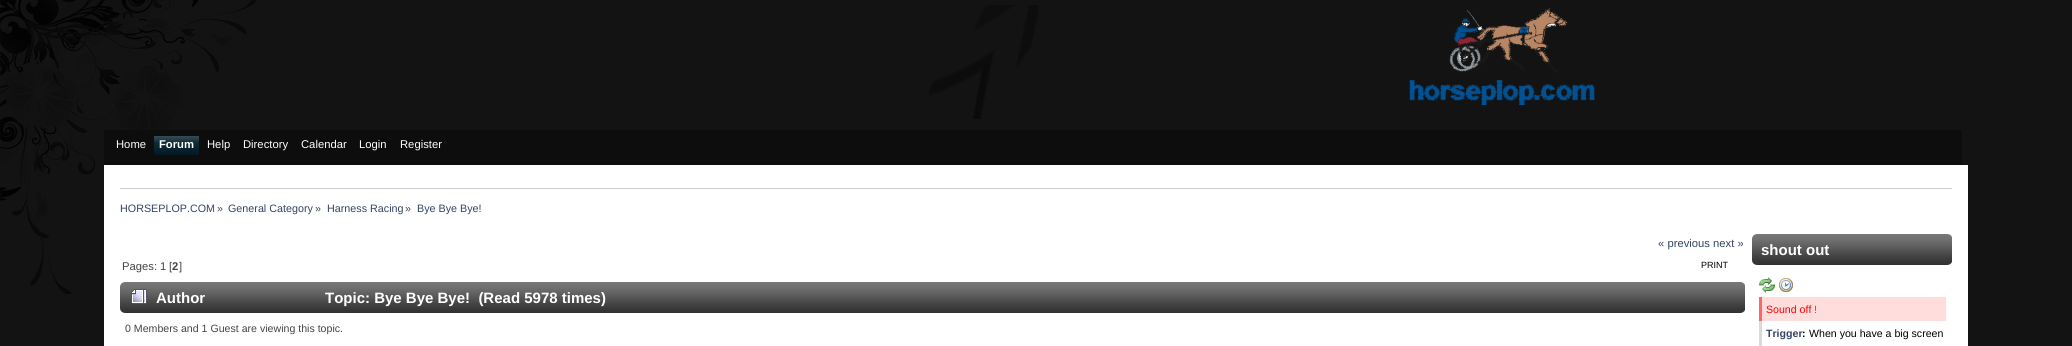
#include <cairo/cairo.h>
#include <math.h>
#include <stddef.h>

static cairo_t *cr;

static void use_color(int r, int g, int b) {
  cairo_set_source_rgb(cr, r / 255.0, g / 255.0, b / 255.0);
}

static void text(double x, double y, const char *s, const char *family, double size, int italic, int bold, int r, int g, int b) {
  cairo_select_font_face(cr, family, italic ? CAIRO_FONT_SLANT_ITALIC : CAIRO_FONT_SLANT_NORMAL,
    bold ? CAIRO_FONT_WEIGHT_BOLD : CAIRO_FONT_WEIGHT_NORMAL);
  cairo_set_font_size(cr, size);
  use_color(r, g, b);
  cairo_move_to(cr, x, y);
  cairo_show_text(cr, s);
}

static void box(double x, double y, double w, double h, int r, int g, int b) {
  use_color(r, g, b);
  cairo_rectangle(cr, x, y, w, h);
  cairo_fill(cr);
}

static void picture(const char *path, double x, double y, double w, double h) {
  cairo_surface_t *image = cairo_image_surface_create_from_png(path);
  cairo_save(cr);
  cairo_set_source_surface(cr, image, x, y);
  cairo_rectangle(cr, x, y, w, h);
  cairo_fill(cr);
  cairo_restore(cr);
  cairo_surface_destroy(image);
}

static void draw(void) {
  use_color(19, 19, 19);
  cairo_paint(cr);
  picture("img_01.png", 0, 0, 257, 294);
  picture("img_02.png", 929, 5, 110, 114);
  picture("img_03.png", 1409, 8, 186, 98);
  box(104, 130, 1858, 35, 13, 13, 13);
  picture("img_04.png", 159, 136, 40, 19);
  picture("img_05.png", 154, 136, 5, 19);
  box(104, 165, 1864, 181, 255, 255, 255);
  box(120, 188, 1832, 1, 204, 204, 204);
  picture("img_06.png", 120, 282, 1621, 31);
  picture("img_07.png", 1741, 282, 4, 31);
  picture("img_08.png", 131, 289, 16, 15);
  picture("img_09.png", 1752, 234, 195, 31);
  picture("img_10.png", 1947, 234, 5, 31);
  picture("img_11.png", 1759, 277, 16, 16);
  picture("img_12.png", 1779, 278, 14, 14);
  box(1762, 297, 184, 24, 255, 221, 221);
  box(1759, 297, 3, 24, 255, 102, 102);
  use_color(218, 218, 218);
  cairo_new_path(cr);
  cairo_move_to(cr, 1759, 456);
  cairo_line_to(cr, 1759, 321);
  cairo_line_to(cr, 1762, 321);
  cairo_line_to(cr, 1762, 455);
  cairo_close_path(cr);
  cairo_fill(cr);
  text(116, 148, "Home", "Liberation Sans", 11.25, 0, 0, 255, 255, 255);
  text(159, 148, "Forum", "Liberation Sans", 11.25, 0, 1, 255, 255, 255);
  text(207, 148, "Help", "Liberation Sans", 11.25, 0, 0, 255, 255, 255);
  text(243, 148, "Directory", "Liberation Sans", 11.25, 0, 0, 255, 255, 255);
  text(301, 148, "Calendar", "Liberation Sans", 11.25, 0, 0, 255, 255, 255);
  text(359, 148, "Login", "Liberation Sans", 11.25, 0, 0, 255, 255, 255);
  text(400, 148, "Register", "Liberation Sans", 11.25, 0, 0, 255, 255, 255);
  text(120, 212, "HORSEPLOP.COM", "Liberation Sans", 10.75, 0, 0, 51, 68, 102);
  text(217, 212, "»", "Liberation Sans", 10.75, 0, 0, 68, 68, 68);
  text(228, 212, "General Category", "Liberation Sans", 10.75, 0, 0, 51, 68, 102);
  text(315, 212, "»", "Liberation Sans", 10.75, 0, 0, 68, 68, 68);
  text(327, 212, "Harness Racing", "Liberation Sans", 10.75, 0, 0, 51, 68, 102);
  text(405, 212, "»", "Liberation Sans", 10.75, 0, 0, 68, 68, 68);
  text(417, 212, "Bye Bye Bye!", "Liberation Sans", 10.75, 0, 0, 51, 68, 102);
  text(1658, 247, "« previous next »", "Liberation Sans", 11.25, 0, 0, 51, 68, 102);
  text(122, 270, "Pages:", "Liberation Sans", 11.25, 0, 0, 68, 68, 68);
  text(160, 270, "1", "Liberation Sans", 11.25, 0, 0, 51, 68, 102);
  text(169, 270, "[", "Liberation Sans", 11.25, 0, 0, 68, 68, 68);
  text(172, 270, "2", "Liberation Sans", 11.25, 0, 1, 68, 68, 68);
  text(179, 270, "]", "Liberation Sans", 11.25, 0, 0, 68, 68, 68);
  text(1701, 268, "PRINT", "Liberation Sans", 9, 0, 0, 0, 0, 0);
  text(156, 303, "Author", "Liberation Sans", 15, 0, 1, 255, 255, 255);
  text(325, 303, "Topic: Bye Bye Bye!  (Read 5978 times)", "Liberation Sans", 15, 0, 1, 255, 255, 255);
  text(125, 332, "0 Members and 1 Guest are viewing this topic.", "Liberation Sans", 10.6, 0, 0, 68, 68, 68);
  text(1761, 255, "shout out", "Liberation Sans", 15, 0, 1, 255, 255, 255);
  text(1766, 313, "Sound off !", "Liberation Sans", 10.6, 0, 0, 255, 0, 0);
  text(1766, 337, "Trigger", "Liberation Sans", 10.6, 0, 1, 51, 68, 102);
  text(1802, 337, ":", "Liberation Sans", 10.6, 0, 1, 0, 0, 0);
  text(1809, 337, "When you have a big screen", "Liberation Sans", 10.6, 0, 0, 0, 0, 0);
}

int main(void) {
  cairo_surface_t *surface = cairo_image_surface_create(CAIRO_FORMAT_RGB24, 2072, 346);
  cr = cairo_create(surface);
  cairo_font_options_t *options = cairo_font_options_create();
  cairo_font_options_set_hint_metrics(options, CAIRO_HINT_METRICS_OFF);
  cairo_font_options_set_hint_style(options, CAIRO_HINT_STYLE_NONE);
  cairo_set_font_options(cr, options);
  cairo_set_miter_limit(cr, 4);
  draw();
  cairo_surface_write_to_png(surface, "out.png");
  cairo_font_options_destroy(options);
  cairo_destroy(cr);
  cairo_surface_destroy(surface);
  return 0;
}
